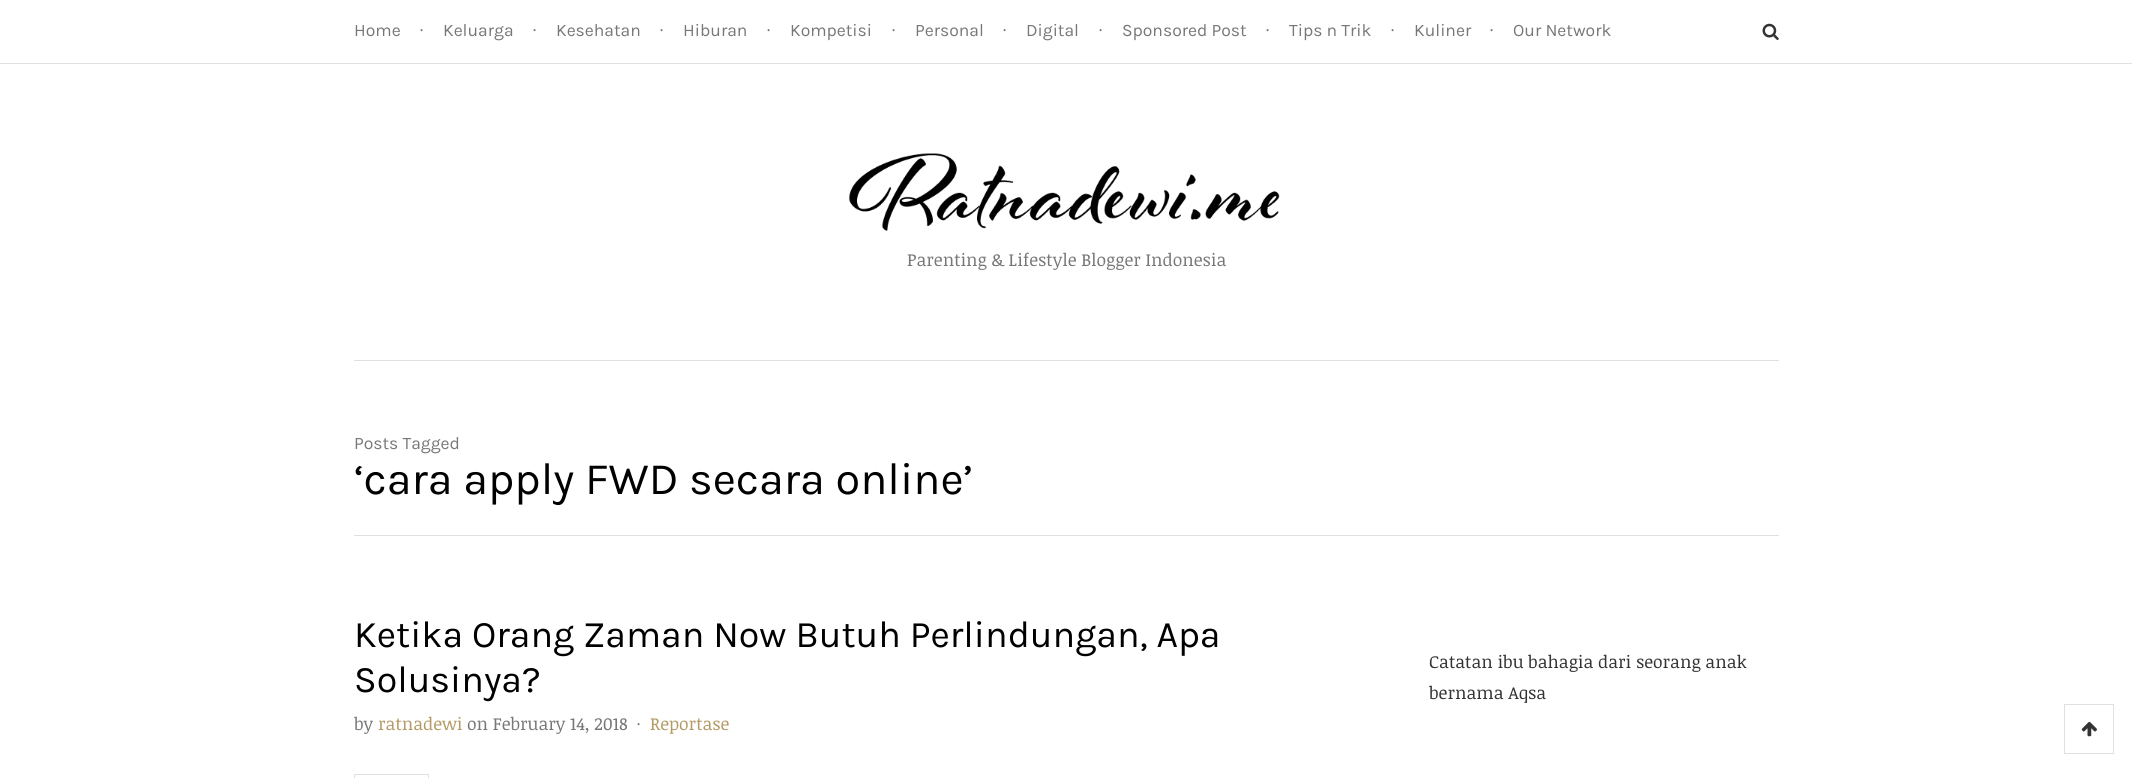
#include <cairo/cairo.h>
#include <math.h>
#include <stddef.h>

static cairo_t *cr;

static void use_color(int r, int g, int b) {
  cairo_set_source_rgb(cr, r / 255.0, g / 255.0, b / 255.0);
}

static void text(double x, double y, const char *s, const char *family, double size, int italic, int bold, int r, int g, int b) {
  cairo_select_font_face(cr, family, italic ? CAIRO_FONT_SLANT_ITALIC : CAIRO_FONT_SLANT_NORMAL,
    bold ? CAIRO_FONT_WEIGHT_BOLD : CAIRO_FONT_WEIGHT_NORMAL);
  cairo_set_font_size(cr, size);
  use_color(r, g, b);
  cairo_move_to(cr, x, y);
  cairo_show_text(cr, s);
}

static void box(double x, double y, double w, double h, int r, int g, int b) {
  use_color(r, g, b);
  cairo_rectangle(cr, x, y, w, h);
  cairo_fill(cr);
}

static void picture(const char *path, double x, double y, double w, double h) {
  cairo_surface_t *image = cairo_image_surface_create_from_png(path);
  cairo_save(cr);
  cairo_set_source_surface(cr, image, x, y);
  cairo_rectangle(cr, x, y, w, h);
  cairo_fill(cr);
  cairo_restore(cr);
  cairo_surface_destroy(image);
}

static void draw(void) {
  use_color(255, 255, 255);
  cairo_paint(cr);
  box(0, 63, 2132, 1, 224, 224, 224);
  picture("img_01.png", 1762, 23, 17, 17);
  picture("img_02.png", 848, 153, 432, 78);
  box(354, 360, 1425, 1, 224, 224, 224);
  box(354, 535, 1425, 1, 224, 224, 224);
  cairo_rectangle(cr, 354.5, 774.5, 74, 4);
  cairo_set_line_width(cr, 1);
  cairo_stroke(cr);
  cairo_rectangle(cr, 2064.5, 704.5, 49, 49);
  cairo_stroke(cr);
  picture("img_03.png", 2081, 721, 16, 16);
  text(354, 36, "Home", "Karla", 17.5, 0, 0, 119, 119, 119);
  text(419, 36, "·", "Noticia Text", 17.5, 0, 0, 119, 119, 119);
  text(443, 36, "Keluarga", "Karla", 17.5, 0, 0, 119, 119, 119);
  text(532, 36, "·", "Noticia Text", 17.5, 0, 0, 119, 119, 119);
  text(556, 36, "Kesehatan", "Karla", 17.5, 0, 0, 119, 119, 119);
  text(659, 36, "·", "Noticia Text", 17.5, 0, 0, 119, 119, 119);
  text(683, 36, "Hiburan", "Karla", 17.5, 0, 0, 119, 119, 119);
  text(766, 36, "·", "Noticia Text", 17.5, 0, 0, 119, 119, 119);
  text(790, 36, "Kompetisi", "Karla", 17.5, 0, 0, 119, 119, 119);
  text(891, 36, "·", "Noticia Text", 17.5, 0, 0, 119, 119, 119);
  text(915, 36, "Personal", "Karla", 17.5, 0, 0, 119, 119, 119);
  text(1002, 36, "·", "Noticia Text", 17.5, 0, 0, 119, 119, 119);
  text(1026, 36, "Digital", "Karla", 17.5, 0, 0, 119, 119, 119);
  text(1098, 36, "·", "Noticia Text", 17.5, 0, 0, 119, 119, 119);
  text(1122, 36, "Sponsored Post", "Karla", 17.5, 0, 0, 119, 119, 119);
  text(1265, 36, "·", "Noticia Text", 17.5, 0, 0, 119, 119, 119);
  text(1289, 36, "Tips n Trik", "Karla", 17.5, 0, 0, 119, 119, 119);
  text(1390, 36, "·", "Noticia Text", 17.5, 0, 0, 119, 119, 119);
  text(1414, 36, "Kuliner", "Karla", 17.5, 0, 0, 119, 119, 119);
  text(1489, 36, "·", "Noticia Text", 17.5, 0, 0, 119, 119, 119);
  text(1513, 36, "Our Network", "Karla", 17.5, 0, 0, 119, 119, 119);
  text(907, 266, "Parenting & Lifestyle Blogger Indonesia", "Noticia Text", 17.5, 0, 0, 119, 119, 119);
  text(354, 449, "Posts Tagged", "Karla", 17.5, 0, 0, 119, 119, 119);
  text(354, 494, "‘cara apply FWD secara online’", "Karla", 45, 0, 0, 0, 0, 0);
  text(354, 647, "Ketika Orang Zaman Now Butuh Perlindungan, Apa", "Karla", 37.5, 0, 0, 0, 0, 0);
  text(354, 692, "Solusinya?", "Karla", 37.5, 0, 0, 0, 0, 0);
  text(354, 730, "by", "Noticia Text", 17.5, 0, 0, 119, 119, 119);
  text(378, 730, "ratnadewi", "Noticia Text", 17.5, 0, 0, 180, 153, 100);
  text(467, 730, "on February 14, 2018", "Noticia Text", 17.5, 0, 0, 119, 119, 119);
  text(636, 730, "·", "Noticia Text", 17.5, 0, 0, 119, 119, 119);
  text(650, 730, "Reportase", "Noticia Text", 17.5, 0, 0, 180, 153, 100);
  text(1429, 668, "Catatan ibu bahagia dari seorang anak", "Noticia Text", 17.5, 0, 0, 51, 51, 51);
  text(1429, 699, "bernama Aqsa", "Noticia Text", 17.5, 0, 0, 51, 51, 51);
}

int main(void) {
  cairo_surface_t *surface = cairo_image_surface_create(CAIRO_FORMAT_RGB24, 2132, 778);
  cr = cairo_create(surface);
  cairo_font_options_t *options = cairo_font_options_create();
  cairo_font_options_set_hint_metrics(options, CAIRO_HINT_METRICS_OFF);
  cairo_font_options_set_hint_style(options, CAIRO_HINT_STYLE_NONE);
  cairo_set_font_options(cr, options);
  cairo_set_miter_limit(cr, 4);
  draw();
  cairo_surface_write_to_png(surface, "out.png");
  cairo_font_options_destroy(options);
  cairo_destroy(cr);
  cairo_surface_destroy(surface);
  return 0;
}
